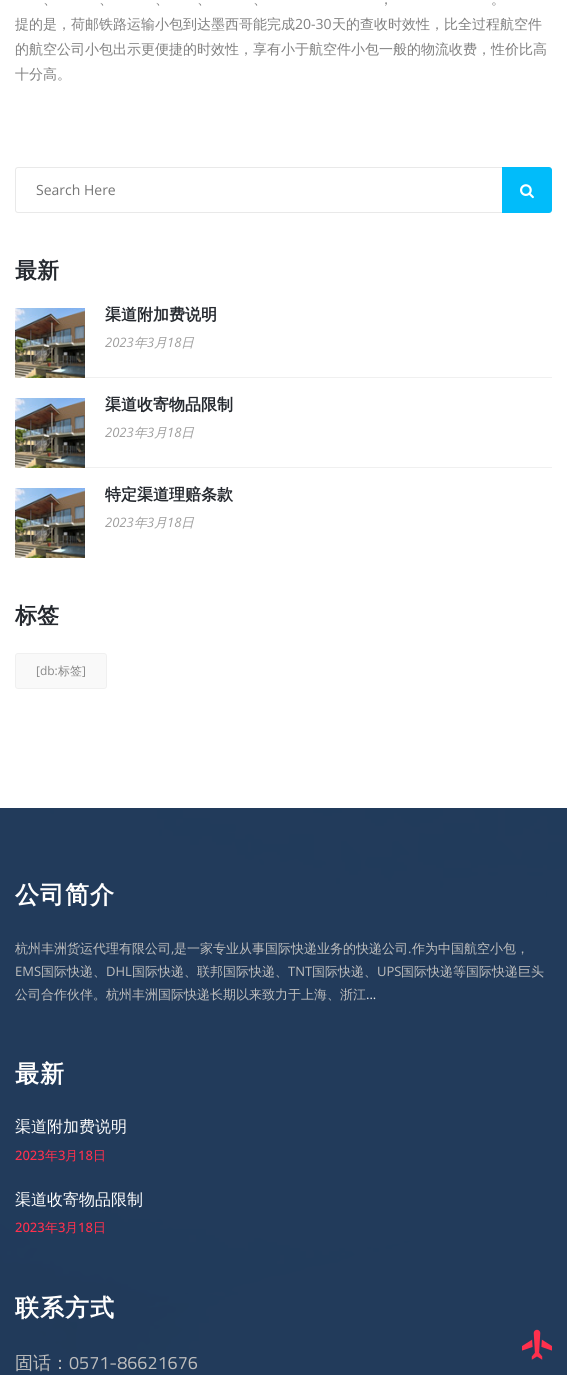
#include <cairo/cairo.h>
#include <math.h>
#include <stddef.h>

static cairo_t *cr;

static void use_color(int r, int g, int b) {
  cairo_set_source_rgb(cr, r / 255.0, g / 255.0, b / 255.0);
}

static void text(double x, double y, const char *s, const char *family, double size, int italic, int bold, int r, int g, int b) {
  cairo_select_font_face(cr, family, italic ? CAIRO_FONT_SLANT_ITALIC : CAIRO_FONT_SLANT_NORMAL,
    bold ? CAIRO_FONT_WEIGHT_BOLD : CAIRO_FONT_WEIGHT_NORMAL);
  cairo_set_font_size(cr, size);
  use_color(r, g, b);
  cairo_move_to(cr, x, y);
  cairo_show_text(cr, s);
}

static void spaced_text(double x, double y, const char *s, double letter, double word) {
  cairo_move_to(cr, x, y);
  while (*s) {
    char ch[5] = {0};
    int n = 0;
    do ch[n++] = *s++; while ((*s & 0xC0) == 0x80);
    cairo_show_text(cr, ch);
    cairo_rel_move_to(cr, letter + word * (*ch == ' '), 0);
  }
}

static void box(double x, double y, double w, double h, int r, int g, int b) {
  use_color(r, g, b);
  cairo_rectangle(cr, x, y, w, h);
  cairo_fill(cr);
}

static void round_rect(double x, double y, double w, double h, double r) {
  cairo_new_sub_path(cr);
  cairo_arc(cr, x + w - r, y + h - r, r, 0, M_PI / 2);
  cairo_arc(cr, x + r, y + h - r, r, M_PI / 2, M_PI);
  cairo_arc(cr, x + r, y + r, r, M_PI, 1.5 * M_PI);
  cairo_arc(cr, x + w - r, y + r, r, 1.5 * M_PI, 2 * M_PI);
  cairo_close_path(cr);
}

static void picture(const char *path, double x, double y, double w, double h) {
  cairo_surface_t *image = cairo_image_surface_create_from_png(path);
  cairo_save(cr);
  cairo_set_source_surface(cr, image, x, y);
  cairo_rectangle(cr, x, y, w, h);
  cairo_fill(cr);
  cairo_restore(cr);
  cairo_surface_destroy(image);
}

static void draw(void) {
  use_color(255, 255, 255);
  cairo_paint(cr);
  round_rect(15.5, 167.5, 536, 45, 2.5);
  use_color(233, 233, 233);
  cairo_set_line_width(cr, 1);
  cairo_stroke(cr);
  use_color(1, 188, 250);
  cairo_new_path(cr);
  cairo_move_to(cr, 502, 167);
  cairo_line_to(cr, 549, 167);
  cairo_curve_to(cr, 550.5, 167, 552, 168.5, 552, 170);
  cairo_line_to(cr, 552, 210);
  cairo_curve_to(cr, 552, 211.5, 550.5, 213, 549, 213);
  cairo_line_to(cr, 502, 213);
  cairo_close_path(cr);
  cairo_fill(cr);
  picture("img_01.png", 520, 184, 14, 15);
  box(85, 377, 467, 1, 240, 240, 240);
  picture("img_02.png", 15, 308, 70, 70);
  box(85, 467, 467, 1, 240, 240, 240);
  picture("img_02.png", 15, 398, 70, 70);
  picture("img_02.png", 15, 488, 70, 70);
  use_color(249, 249, 249);
  round_rect(15.5, 653.5, 91, 35, 2.5);
  cairo_fill_preserve(cr);
  use_color(240, 240, 240);
  cairo_stroke(cr);
  picture("img_03.png", 0, 808, 567, 567);
  picture("img_04.png", 522, 1329, 30, 31);
  text(43, 4, "、", "WenQuanYi Zen Hei Medium", 14, 0, 0, 128, 128, 128);
  text(99, 4, "、", "WenQuanYi Zen Hei Medium", 14, 0, 0, 128, 128, 128);
  text(155, 4, "、", "WenQuanYi Zen Hei Medium", 14, 0, 0, 128, 128, 128);
  text(197, 4, "、", "WenQuanYi Zen Hei Medium", 14, 0, 0, 128, 128, 128);
  text(253, 4, "、", "WenQuanYi Zen Hei Medium", 14, 0, 0, 128, 128, 128);
  text(379, 4, "，", "WenQuanYi Zen Hei Medium", 14, 0, 0, 128, 128, 128);
  text(491, 4, "。", "WenQuanYi Zen Hei Medium", 14, 0, 0, 128, 128, 128);
  text(15, 29, "提的是，荷邮铁路运输小包到达墨西哥能完成", "WenQuanYi Zen Hei Medium", 14, 0, 0, 128, 128, 128);
  text(295, 29, "20-30", "Open Sans", 14, 0, 0, 128, 128, 128);
  text(332, 29, "天的查收时效性，比全过程航空件", "WenQuanYi Zen Hei Medium", 14, 0, 0, 128, 128, 128);
  text(15, 54, "的航空公司小包出示更便捷的时效性，享有小于航空件小包一般的物流收费，性价比高", "WenQuanYi Zen Hei Medium", 14, 0, 0, 128, 128, 128);
  text(15, 79, "十分高。", "WenQuanYi Zen Hei Medium", 14, 0, 0, 128, 128, 128);
  text(36, 195, "Search Here", "Open Sans", 14, 0, 0, 117, 117, 117);
  text(15, 278, "最新", "WenQuanYi Zen Hei", 22, 0, 1, 37, 41, 47);
  text(105, 320, "渠道附加费说明", "WenQuanYi Zen Hei", 16, 0, 1, 37, 41, 47);
  text(105, 347, "2023", "Open Sans", 13, 1, 0, 157, 157, 157);
  text(134, 347, "年", "WenQuanYi Zen Hei Medium", 13, 1, 0, 157, 157, 157);
  text(147, 347, "3", "Open Sans", 13, 1, 0, 157, 157, 157);
  text(154, 347, "月", "WenQuanYi Zen Hei Medium", 13, 1, 0, 157, 157, 157);
  text(167, 347, "18", "Open Sans", 13, 1, 0, 157, 157, 157);
  text(181, 347, "日", "WenQuanYi Zen Hei Medium", 13, 1, 0, 157, 157, 157);
  text(105, 410, "渠道收寄物品限制", "WenQuanYi Zen Hei", 16, 0, 1, 37, 41, 47);
  text(105, 437, "2023", "Open Sans", 13, 1, 0, 157, 157, 157);
  text(134, 437, "年", "WenQuanYi Zen Hei Medium", 13, 1, 0, 157, 157, 157);
  text(147, 437, "3", "Open Sans", 13, 1, 0, 157, 157, 157);
  text(154, 437, "月", "WenQuanYi Zen Hei Medium", 13, 1, 0, 157, 157, 157);
  text(167, 437, "18", "Open Sans", 13, 1, 0, 157, 157, 157);
  text(181, 437, "日", "WenQuanYi Zen Hei Medium", 13, 1, 0, 157, 157, 157);
  text(105, 500, "特定渠道理赔条款", "WenQuanYi Zen Hei", 16, 0, 1, 37, 41, 47);
  text(105, 527, "2023", "Open Sans", 13, 1, 0, 157, 157, 157);
  text(134, 527, "年", "WenQuanYi Zen Hei Medium", 13, 1, 0, 157, 157, 157);
  text(147, 527, "3", "Open Sans", 13, 1, 0, 157, 157, 157);
  text(154, 527, "月", "WenQuanYi Zen Hei Medium", 13, 1, 0, 157, 157, 157);
  text(167, 527, "18", "Open Sans", 13, 1, 0, 157, 157, 157);
  text(181, 527, "日", "WenQuanYi Zen Hei Medium", 13, 1, 0, 157, 157, 157);
  text(15, 623, "标签", "WenQuanYi Zen Hei", 22, 0, 1, 37, 41, 47);
  text(36, 675, "[db:", "Open Sans", 12, 0, 0, 136, 136, 136);
  text(58, 675, "标签", "WenQuanYi Zen Hei Medium", 12, 0, 0, 136, 136, 136);
  text(82, 675, "]", "Open Sans", 12, 0, 0, 136, 136, 136);
  cairo_select_font_face(cr, "WenQuanYi Zen Hei", CAIRO_FONT_SLANT_NORMAL, CAIRO_FONT_WEIGHT_BOLD);
  cairo_set_font_size(cr, 24);
  use_color(255, 255, 255);
  spaced_text(15, 903, "公司简介", 1, 0);
  text(15, 953, "杭州丰洲货运代理有限公司", "WenQuanYi Zen Hei Medium", 13, 0, 0, 190, 190, 190);
  text(171, 953, ",", "Open Sans", 13, 0, 0, 190, 190, 190);
  text(174, 953, "是一家专业从事国际快递业务的快递公司", "WenQuanYi Zen Hei Medium", 13, 0, 0, 190, 190, 190);
  text(408, 953, ".", "Open Sans", 13, 0, 0, 190, 190, 190);
  text(412, 953, "作为中国航空小包，", "WenQuanYi Zen Hei Medium", 13, 0, 0, 190, 190, 190);
  text(15, 976, "EMS", "Open Sans", 13, 0, 0, 190, 190, 190);
  text(41, 976, "国际快递、", "WenQuanYi Zen Hei Medium", 13, 0, 0, 190, 190, 190);
  text(106, 976, "DHL", "Open Sans", 13, 0, 0, 190, 190, 190);
  text(132, 976, "国际快递、联邦国际快递、", "WenQuanYi Zen Hei Medium", 13, 0, 0, 190, 190, 190);
  text(288, 976, "TNT", "Open Sans", 13, 0, 0, 190, 190, 190);
  text(312, 976, "国际快递、", "WenQuanYi Zen Hei Medium", 13, 0, 0, 190, 190, 190);
  text(377, 976, "UPS", "Open Sans", 13, 0, 0, 190, 190, 190);
  text(401, 976, "国际快递等国际快递巨头", "WenQuanYi Zen Hei Medium", 13, 0, 0, 190, 190, 190);
  text(15, 999, "公司合作伙伴。杭州丰洲国际快递长期以来致力于上海、浙江", "WenQuanYi Zen Hei Medium", 13, 0, 0, 190, 190, 190);
  text(366, 999, "...", "Open Sans", 13, 0, 0, 233, 233, 233);
  cairo_select_font_face(cr, "WenQuanYi Zen Hei", CAIRO_FONT_SLANT_NORMAL, CAIRO_FONT_WEIGHT_BOLD);
  cairo_set_font_size(cr, 24);
  use_color(255, 255, 255);
  spaced_text(15, 1082, "最新", 1, 0);
  text(15, 1132, "渠道附加费说明", "WenQuanYi Zen Hei Medium", 16, 0, 0, 255, 255, 255);
  text(15, 1160, "2023", "Open Sans Medium", 13, 0, 0, 255, 48, 77);
  text(45, 1160, "年", "WenQuanYi Zen Hei Medium", 13, 0, 0, 255, 48, 77);
  text(58, 1160, "3", "Open Sans Medium", 13, 0, 0, 255, 48, 77);
  text(65, 1160, "月", "WenQuanYi Zen Hei Medium", 13, 0, 0, 255, 48, 77);
  text(78, 1160, "18", "Open Sans Medium", 13, 0, 0, 255, 48, 77);
  text(93, 1160, "日", "WenQuanYi Zen Hei Medium", 13, 0, 0, 255, 48, 77);
  text(15, 1205, "渠道收寄物品限制", "WenQuanYi Zen Hei Medium", 16, 0, 0, 255, 255, 255);
  text(15, 1232, "2023", "Open Sans Medium", 13, 0, 0, 255, 48, 77);
  text(45, 1232, "年", "WenQuanYi Zen Hei Medium", 13, 0, 0, 255, 48, 77);
  text(58, 1232, "3", "Open Sans Medium", 13, 0, 0, 255, 48, 77);
  text(65, 1232, "月", "WenQuanYi Zen Hei Medium", 13, 0, 0, 255, 48, 77);
  text(78, 1232, "18", "Open Sans Medium", 13, 0, 0, 255, 48, 77);
  text(93, 1232, "日", "WenQuanYi Zen Hei Medium", 13, 0, 0, 255, 48, 77);
  cairo_select_font_face(cr, "WenQuanYi Zen Hei", CAIRO_FONT_SLANT_NORMAL, CAIRO_FONT_WEIGHT_BOLD);
  cairo_set_font_size(cr, 24);
  use_color(255, 255, 255);
  spaced_text(15, 1316, "联系方式", 1, 0);
  text(15, 1369, "固话：", "WenQuanYi Zen Hei Medium", 18, 0, 0, 190, 190, 190);
  text(69, 1369, "0571-86621676", "Titillium Web", 18, 0, 0, 190, 190, 190);
}

int main(void) {
  cairo_surface_t *surface = cairo_image_surface_create(CAIRO_FORMAT_RGB24, 567, 1375);
  cr = cairo_create(surface);
  cairo_font_options_t *options = cairo_font_options_create();
  cairo_font_options_set_hint_metrics(options, CAIRO_HINT_METRICS_OFF);
  cairo_font_options_set_hint_style(options, CAIRO_HINT_STYLE_NONE);
  cairo_set_font_options(cr, options);
  cairo_set_miter_limit(cr, 4);
  draw();
  cairo_surface_write_to_png(surface, "out.png");
  cairo_font_options_destroy(options);
  cairo_destroy(cr);
  cairo_surface_destroy(surface);
  return 0;
}
